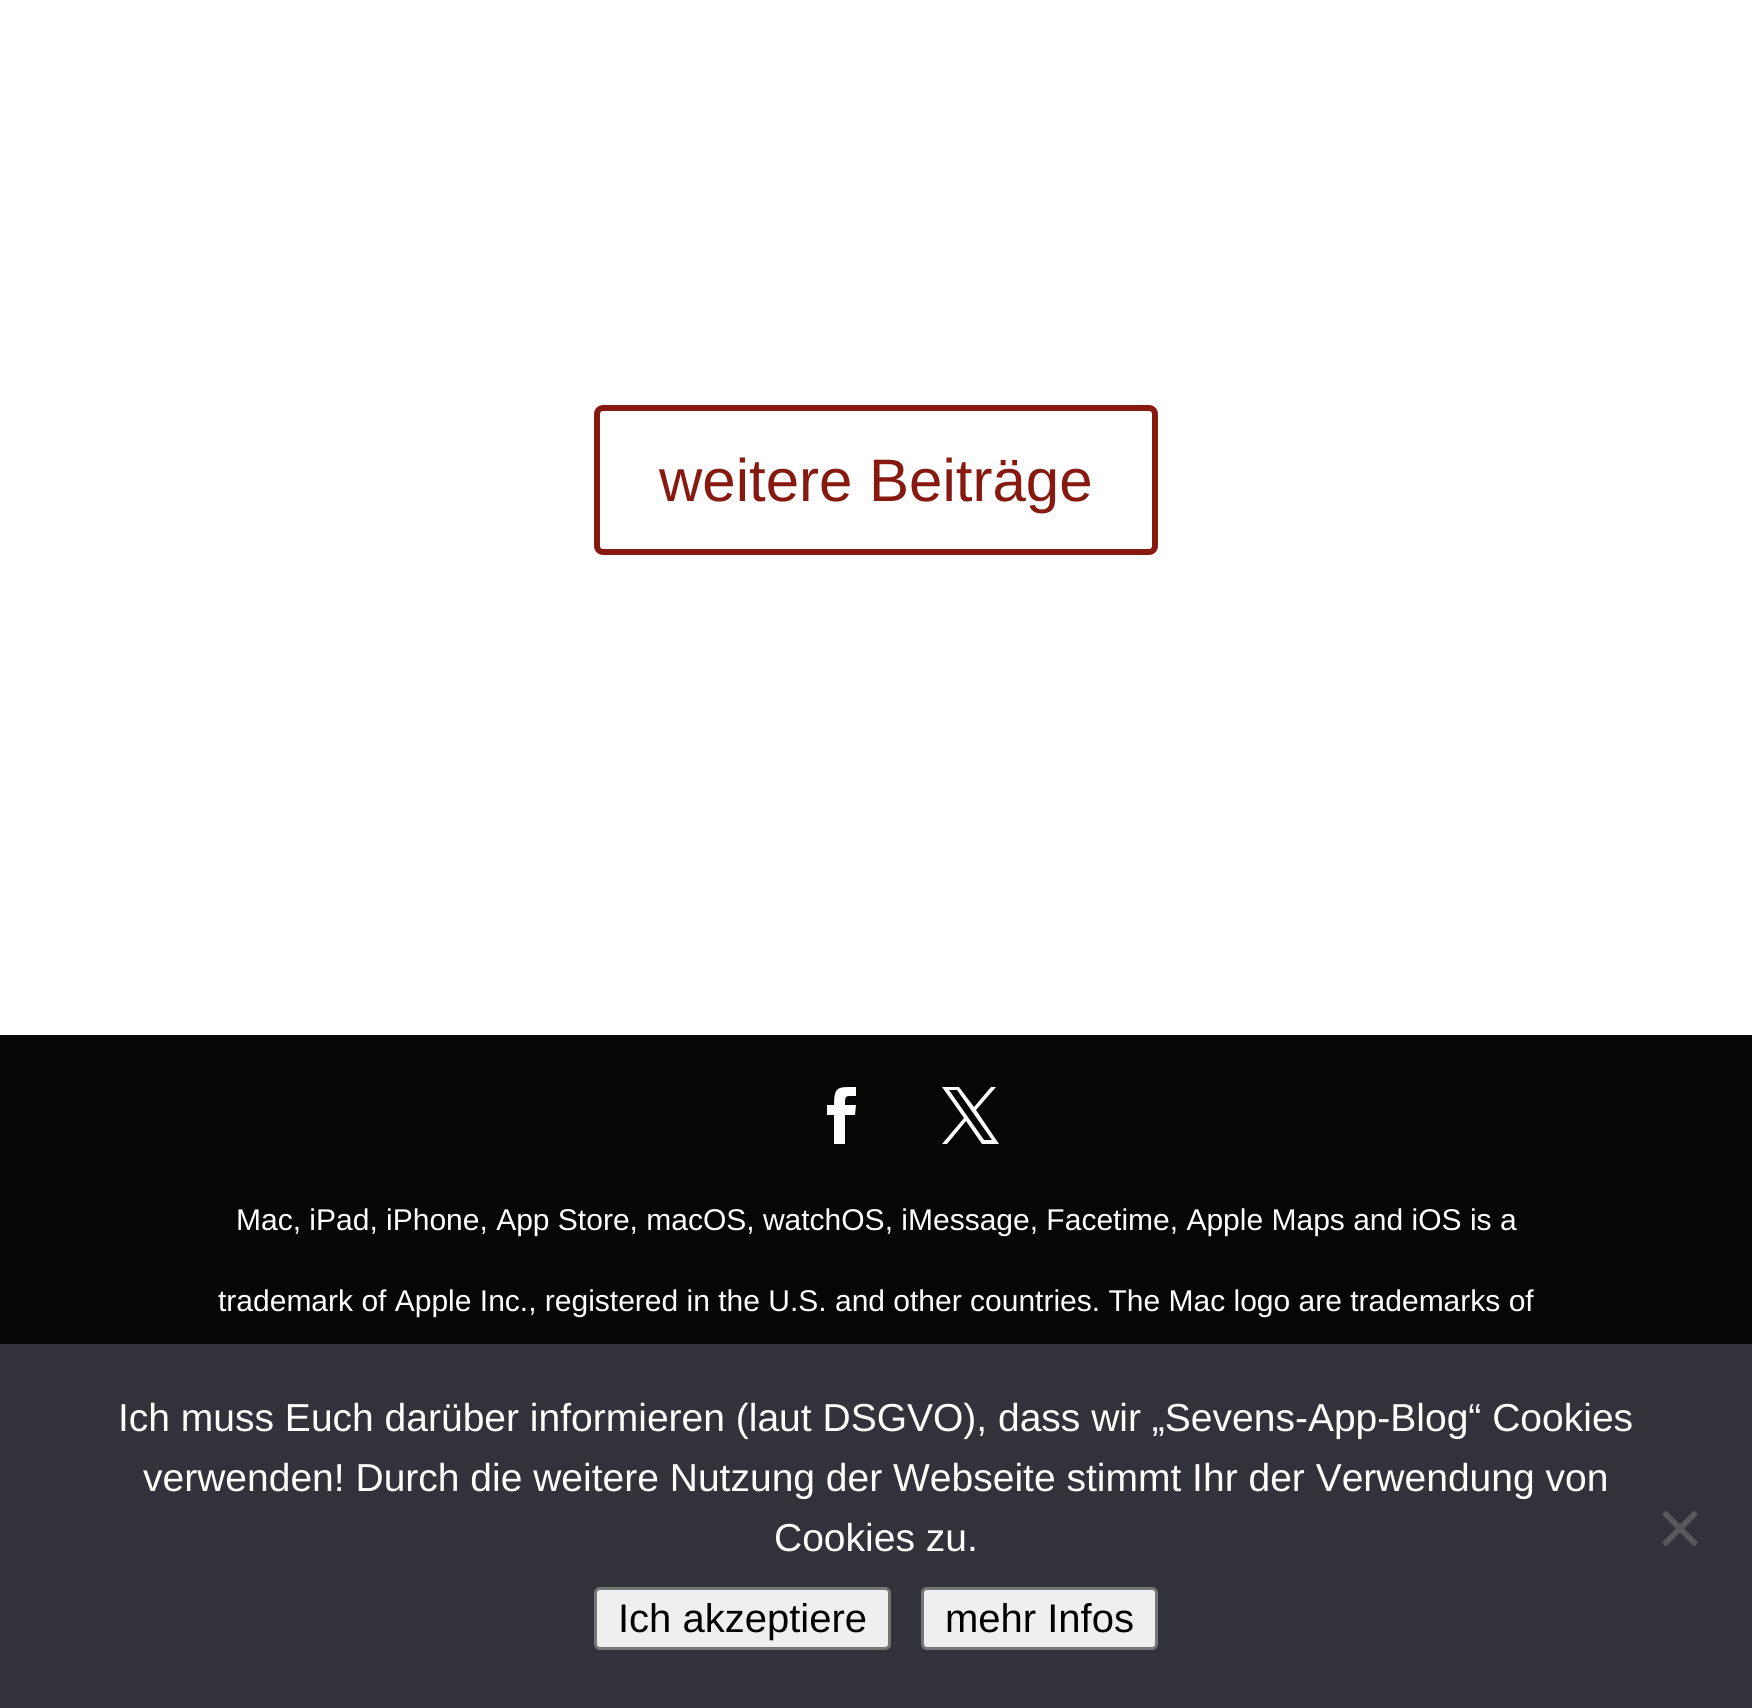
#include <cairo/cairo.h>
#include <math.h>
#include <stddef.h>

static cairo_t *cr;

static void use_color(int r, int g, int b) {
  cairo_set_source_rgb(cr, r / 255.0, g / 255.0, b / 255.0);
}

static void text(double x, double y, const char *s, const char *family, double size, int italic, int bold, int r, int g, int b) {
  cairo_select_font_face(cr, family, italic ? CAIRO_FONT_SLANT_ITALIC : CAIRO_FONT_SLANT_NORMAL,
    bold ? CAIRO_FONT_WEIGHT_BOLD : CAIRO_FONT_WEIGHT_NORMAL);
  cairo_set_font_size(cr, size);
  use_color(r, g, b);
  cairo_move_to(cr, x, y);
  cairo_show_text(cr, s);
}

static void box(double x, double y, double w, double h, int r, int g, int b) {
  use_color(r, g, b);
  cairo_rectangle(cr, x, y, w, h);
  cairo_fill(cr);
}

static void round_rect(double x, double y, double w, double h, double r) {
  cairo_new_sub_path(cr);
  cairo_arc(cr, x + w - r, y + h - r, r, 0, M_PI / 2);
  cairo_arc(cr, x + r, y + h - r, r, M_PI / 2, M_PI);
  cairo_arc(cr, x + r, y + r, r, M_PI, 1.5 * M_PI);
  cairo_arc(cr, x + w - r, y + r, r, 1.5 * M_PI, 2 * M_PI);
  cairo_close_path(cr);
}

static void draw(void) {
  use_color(255, 255, 255);
  cairo_paint(cr);
  round_rect(597, 408, 558, 144, 6);
  use_color(134, 26, 17);
  cairo_set_line_width(cr, 6);
  cairo_stroke(cr);
  box(0, 1035, 1752, 309, 6, 7, 5);
  use_color(255, 255, 255);
  cairo_new_path(cr);
  cairo_move_to(cr, 834, 1144);
  cairo_line_to(cr, 845, 1144);
  cairo_line_to(cr, 845, 1115);
  cairo_line_to(cr, 855, 1115);
  cairo_line_to(cr, 856, 1105);
  cairo_line_to(cr, 845, 1105);
  cairo_curve_to(cr, 845, 1095, 845, 1096, 856, 1096);
  cairo_line_to(cr, 856, 1087);
  cairo_curve_to(cr, 838, 1087, 834, 1086, 834, 1105);
  cairo_line_to(cr, 827, 1105);
  cairo_line_to(cr, 827, 1115);
  cairo_line_to(cr, 834, 1115);
  cairo_close_path(cr);
  cairo_fill(cr);
  cairo_new_path(cr);
  cairo_move_to(cr, 942, 1087);
  cairo_line_to(cr, 964, 1118);
  cairo_line_to(cr, 942, 1144);
  cairo_line_to(cr, 947, 1144);
  cairo_line_to(cr, 966, 1121);
  cairo_line_to(cr, 982, 1144);
  cairo_line_to(cr, 999, 1144);
  cairo_line_to(cr, 976, 1110);
  cairo_line_to(cr, 996, 1087);
  cairo_line_to(cr, 991, 1087);
  cairo_line_to(cr, 974, 1107);
  cairo_line_to(cr, 959, 1087);
  cairo_close_path(cr);
  cairo_move_to(cr, 949, 1090);
  cairo_line_to(cr, 957, 1090);
  cairo_line_to(cr, 992, 1140);
  cairo_line_to(cr, 984, 1140);
  cairo_close_path(cr);
  cairo_fill(cr);
  box(0, 1344, 1752, 364, 50, 50, 58);
  use_color(89, 89, 93);
  cairo_new_path(cr);
  cairo_move_to(cr, 1694, 1510.5);
  cairo_line_to(cr, 1698, 1514.5);
  cairo_line_to(cr, 1666, 1546.5);
  cairo_line_to(cr, 1662, 1542.5);
  cairo_close_path(cr);
  cairo_fill(cr);
  cairo_new_path(cr);
  cairo_move_to(cr, 1662, 1514.5);
  cairo_line_to(cr, 1666, 1510.5);
  cairo_line_to(cr, 1698, 1542.5);
  cairo_line_to(cr, 1694, 1546.5);
  cairo_close_path(cr);
  cairo_fill(cr);
  use_color(239, 239, 239);
  round_rect(595.5, 1588.5, 294, 60, 4.5);
  cairo_fill_preserve(cr);
  use_color(118, 118, 118);
  cairo_set_line_width(cr, 3);
  cairo_stroke(cr);
  use_color(239, 239, 239);
  round_rect(922.5, 1588.5, 234, 60, 4.5);
  cairo_fill_preserve(cr);
  use_color(118, 118, 118);
  cairo_stroke(cr);
  text(659, 501, "weitere Beiträge", "Liberation Sans", 60, 0, 0, 134, 26, 17);
  text(236, 1230, "Mac, iPad, iPhone, App Store, macOS, watchOS, iMessage, Facetime, Apple Maps and iOS is a", "Liberation Sans", 30, 0, 0, 255, 255, 255);
  text(218, 1311, "trademark of Apple Inc., registered in the U.S. and other countries. The Mac logo are trademarks of", "Liberation Sans", 30, 0, 0, 255, 255, 255);
  text(118, 1431, "Ich muss Euch darüber informieren (laut DSGVO), dass wir „Sevens-App-Blog“ Cookies", "Liberation Sans", 39, 0, 0, 255, 255, 255);
  text(143, 1491, "verwenden! Durch die weitere Nutzung der Webseite stimmt Ihr der Verwendung von", "Liberation Sans", 39, 0, 0, 255, 255, 255);
  text(774, 1551, "Cookies zu.", "Liberation Sans", 39, 0, 0, 255, 255, 255);
  text(618, 1632, "Ich akzeptiere", "Liberation Sans", 40, 0, 0, 0, 0, 0);
  text(945, 1632, "mehr Infos", "Liberation Sans", 40, 0, 0, 0, 0, 0);
}

int main(void) {
  cairo_surface_t *surface = cairo_image_surface_create(CAIRO_FORMAT_RGB24, 1752, 1708);
  cr = cairo_create(surface);
  cairo_font_options_t *options = cairo_font_options_create();
  cairo_font_options_set_hint_metrics(options, CAIRO_HINT_METRICS_OFF);
  cairo_font_options_set_hint_style(options, CAIRO_HINT_STYLE_NONE);
  cairo_set_font_options(cr, options);
  cairo_set_miter_limit(cr, 4);
  draw();
  cairo_surface_write_to_png(surface, "out.png");
  cairo_font_options_destroy(options);
  cairo_destroy(cr);
  cairo_surface_destroy(surface);
  return 0;
}
